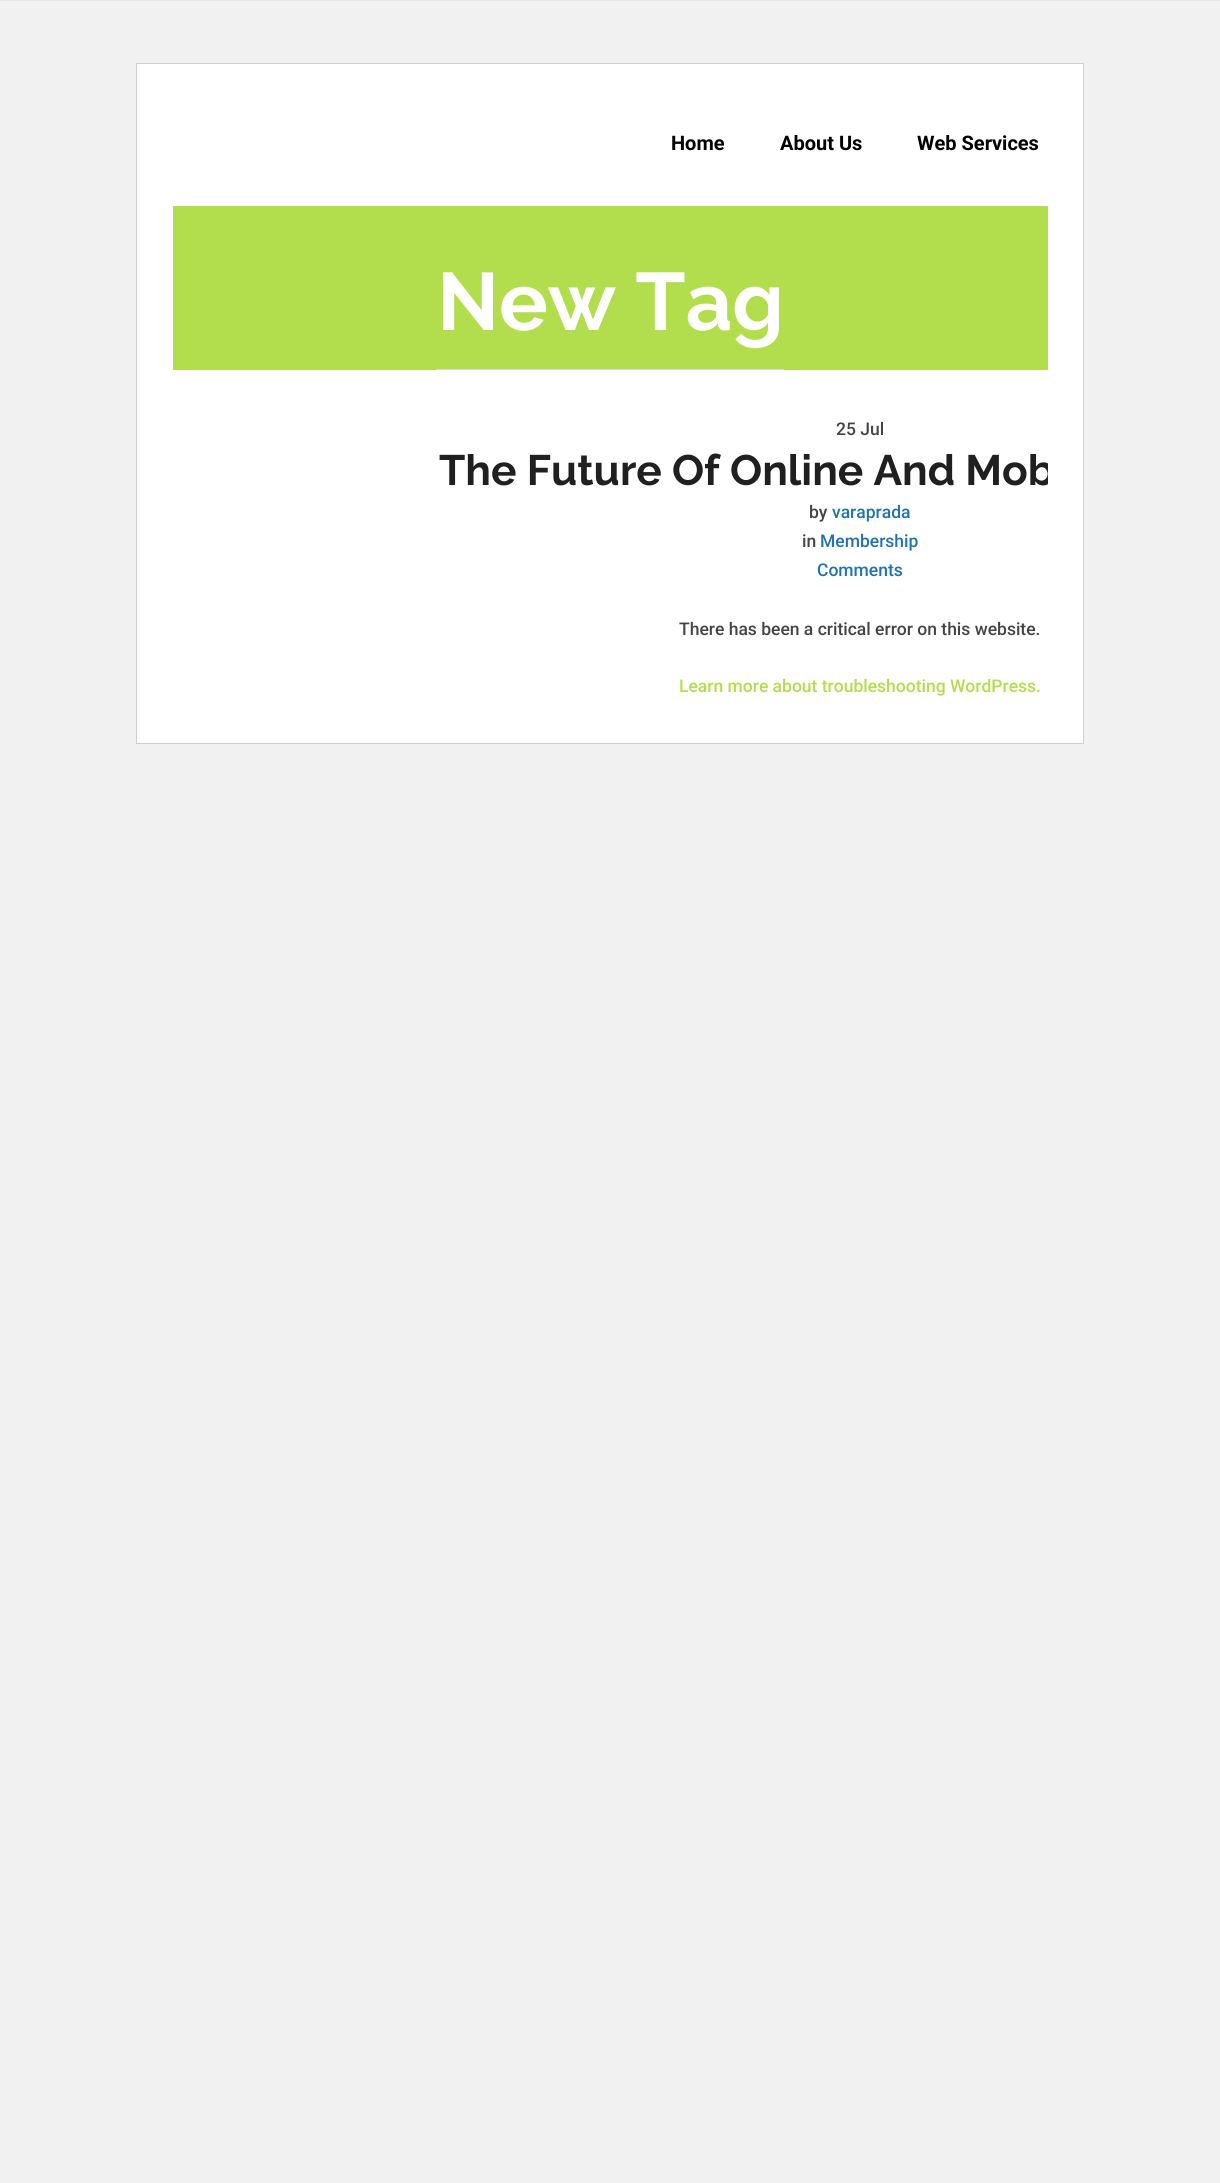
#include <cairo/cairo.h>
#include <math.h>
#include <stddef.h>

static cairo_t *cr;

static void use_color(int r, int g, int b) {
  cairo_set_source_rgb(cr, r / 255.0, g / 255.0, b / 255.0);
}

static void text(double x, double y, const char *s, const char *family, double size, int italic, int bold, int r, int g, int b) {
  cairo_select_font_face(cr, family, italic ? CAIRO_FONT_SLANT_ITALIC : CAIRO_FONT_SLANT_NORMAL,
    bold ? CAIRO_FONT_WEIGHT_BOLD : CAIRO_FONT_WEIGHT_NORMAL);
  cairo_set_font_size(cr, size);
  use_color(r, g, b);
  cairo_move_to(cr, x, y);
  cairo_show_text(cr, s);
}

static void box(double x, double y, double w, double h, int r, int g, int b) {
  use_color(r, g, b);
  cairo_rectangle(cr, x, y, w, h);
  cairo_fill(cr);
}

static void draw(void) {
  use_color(241, 241, 241);
  cairo_paint(cr);
  use_color(255, 255, 255);
  cairo_rectangle(cr, 136.5, 63.5, 947, 680);
  cairo_fill_preserve(cr);
  use_color(204, 208, 212);
  cairo_set_line_width(cr, 1);
  cairo_stroke(cr);
  box(0, 0, 1220, 1, 231, 231, 231);
  box(173, 206, 875, 164, 178, 221, 76);
  box(436, 369, 348, 1, 218, 218, 218);
  text(671, 150, "Home", "Roboto", 20, 0, 1, 0, 0, 0);
  text(780, 150, "About Us", "Roboto", 20, 0, 1, 0, 0, 0);
  text(917, 150, "Web Services", "Roboto", 20, 0, 1, 0, 0, 0);
  text(437, 330, "New Tag", "Raleway", 81.25, 0, 1, 255, 255, 255);
  text(836, 435, "25 Jul", "Roboto Medium", 17.5, 0, 0, 68, 68, 68);
  cairo_save(cr);
  cairo_rectangle(cr, 173, 81, 875, 644);
  cairo_clip(cr);
  text(439, 485, "The Future Of Online And Mob", "Raleway", 42.5, 0, 1, 32, 32, 32);
  cairo_restore(cr);
  text(809, 518, "by", "Roboto Medium", 17.5, 0, 0, 68, 68, 68);
  text(832, 518, "varaprada", "Roboto Medium", 17.5, 0, 0, 34, 113, 177);
  text(802, 547, "in", "Roboto Medium", 17.5, 0, 0, 68, 68, 68);
  text(820, 547, "Membership", "Roboto Medium", 17.5, 0, 0, 34, 113, 177);
  text(817, 576, "Comments", "Roboto Medium", 17.5, 0, 0, 34, 113, 177);
  text(679, 635, "There has been a critical error on this website.", "Roboto Medium", 17.5, 0, 0, 68, 68, 68);
  text(679, 692, "Learn more about troubleshooting WordPress.", "Roboto Medium", 17.5, 0, 0, 178, 221, 76);
}

int main(void) {
  cairo_surface_t *surface = cairo_image_surface_create(CAIRO_FORMAT_RGB24, 1220, 2183);
  cr = cairo_create(surface);
  cairo_font_options_t *options = cairo_font_options_create();
  cairo_font_options_set_hint_metrics(options, CAIRO_HINT_METRICS_OFF);
  cairo_font_options_set_hint_style(options, CAIRO_HINT_STYLE_NONE);
  cairo_set_font_options(cr, options);
  cairo_set_miter_limit(cr, 4);
  draw();
  cairo_surface_write_to_png(surface, "out.png");
  cairo_font_options_destroy(options);
  cairo_destroy(cr);
  cairo_surface_destroy(surface);
  return 0;
}
